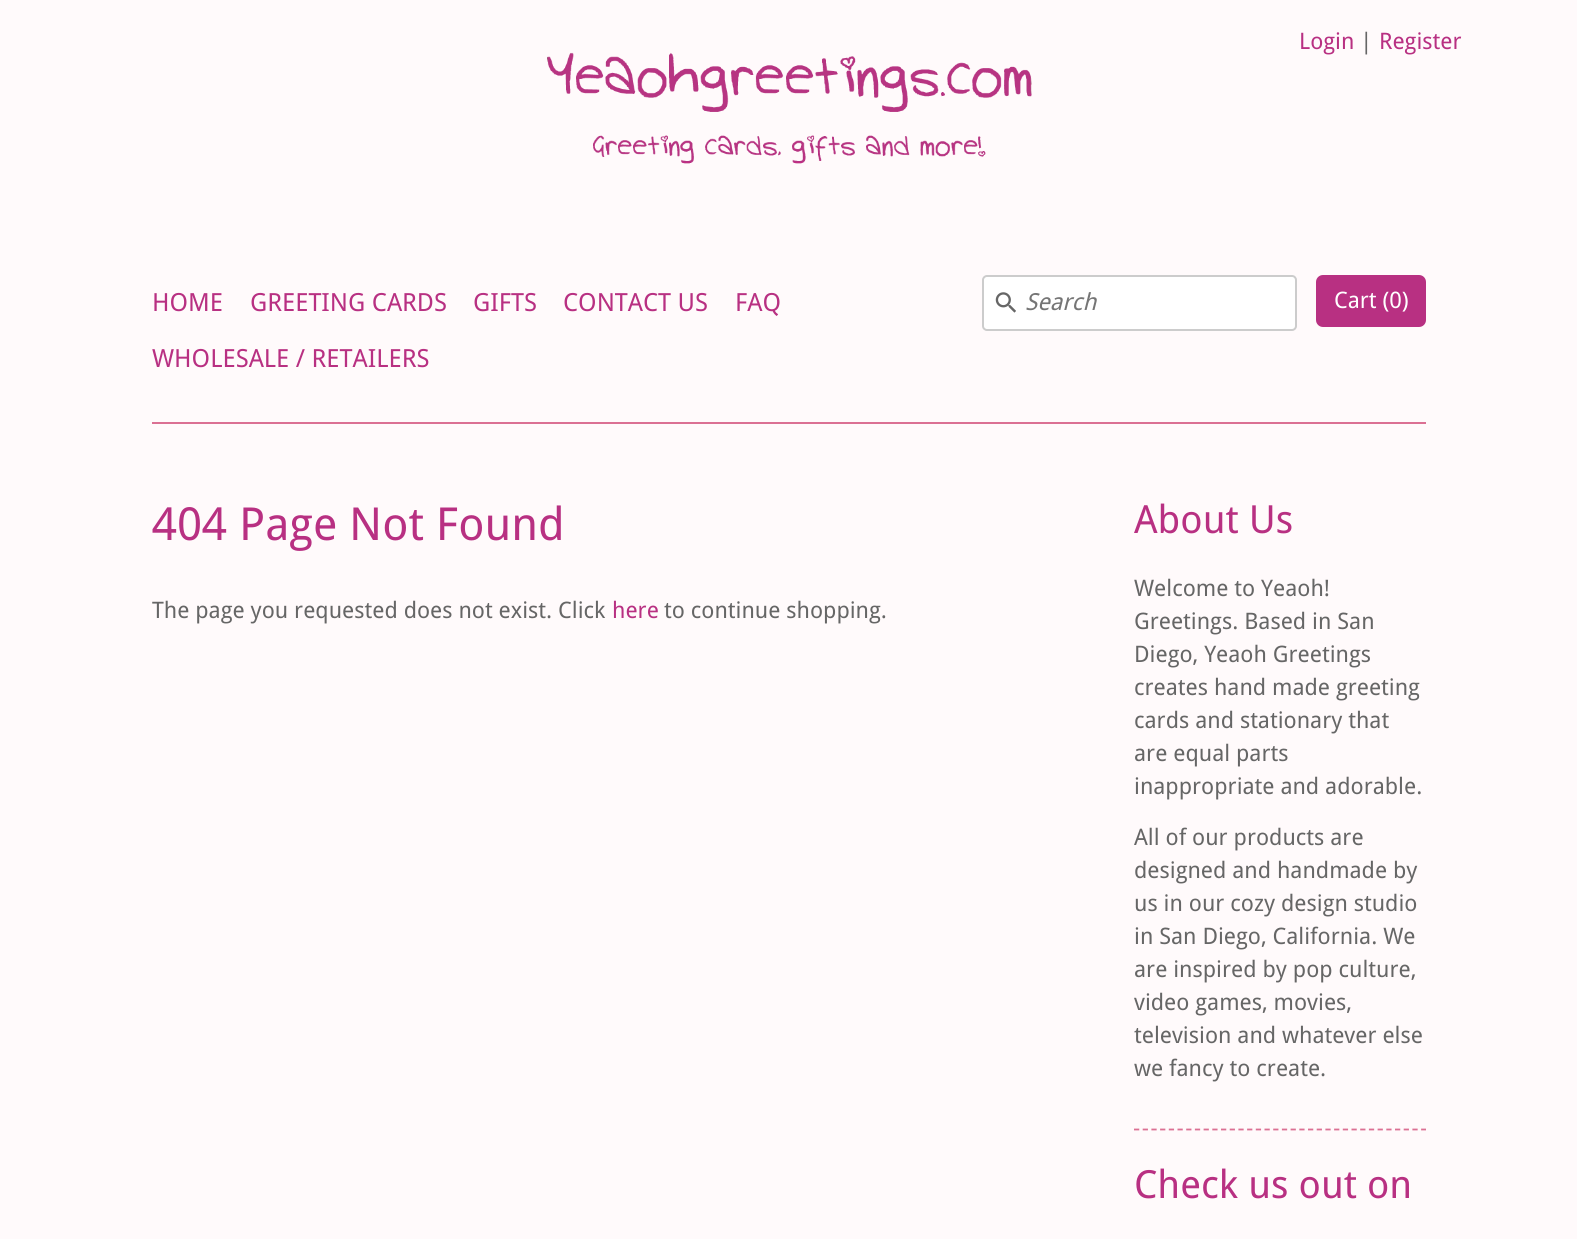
#include <cairo/cairo.h>
#include <math.h>
#include <stddef.h>

static cairo_t *cr;

static void use_color(int r, int g, int b) {
  cairo_set_source_rgb(cr, r / 255.0, g / 255.0, b / 255.0);
}

static void text(double x, double y, const char *s, const char *family, double size, int italic, int bold, int r, int g, int b) {
  cairo_select_font_face(cr, family, italic ? CAIRO_FONT_SLANT_ITALIC : CAIRO_FONT_SLANT_NORMAL,
    bold ? CAIRO_FONT_WEIGHT_BOLD : CAIRO_FONT_WEIGHT_NORMAL);
  cairo_set_font_size(cr, size);
  use_color(r, g, b);
  cairo_move_to(cr, x, y);
  cairo_show_text(cr, s);
}

static void box(double x, double y, double w, double h, int r, int g, int b) {
  use_color(r, g, b);
  cairo_rectangle(cr, x, y, w, h);
  cairo_fill(cr);
}

static void round_rect(double x, double y, double w, double h, double r) {
  cairo_new_sub_path(cr);
  cairo_arc(cr, x + w - r, y + h - r, r, 0, M_PI / 2);
  cairo_arc(cr, x + r, y + h - r, r, M_PI / 2, M_PI);
  cairo_arc(cr, x + r, y + r, r, M_PI, 1.5 * M_PI);
  cairo_arc(cr, x + w - r, y + r, r, 1.5 * M_PI, 2 * M_PI);
  cairo_close_path(cr);
}

static void picture(const char *path, double x, double y, double w, double h) {
  cairo_surface_t *image = cairo_image_surface_create_from_png(path);
  cairo_save(cr);
  cairo_set_source_surface(cr, image, x, y);
  cairo_rectangle(cr, x, y, w, h);
  cairo_fill(cr);
  cairo_restore(cr);
  cairo_surface_destroy(image);
}

static void draw(void) {
  use_color(255, 250, 251);
  cairo_paint(cr);
  picture("img_01.png", 547, 52, 485, 112);
  box(152, 422, 1274, 2, 219, 112, 147);
  use_color(255, 255, 255);
  round_rect(983, 276, 313, 54, 4);
  cairo_fill_preserve(cr);
  use_color(204, 204, 204);
  cairo_stroke(cr);
  picture("img_02.png", 995, 292, 21, 21);
  use_color(184, 48, 130);
  round_rect(1316, 275, 110, 52, 7);
  cairo_fill(cr);
  cairo_new_path(cr);
  cairo_move_to(cr, 1134, 1129.5);
  cairo_line_to(cr, 1426, 1129.5);
  use_color(219, 112, 147);
  cairo_set_line_width(cr, 1.8);
  cairo_set_dash(cr, (double[]){5.25, 3.45}, 2, 0);
  cairo_stroke(cr);
  text(1299, 49, "Login", "Droid Sans", 22.75, 0, 0, 184, 48, 130);
  text(1360, 49, "|", "Droid Sans", 22.75, 0, 0, 102, 102, 102);
  text(1379, 49, "Register", "Droid Sans", 22.75, 0, 0, 184, 48, 130);
  text(152, 311, "HOME", "Droid Sans", 25, 0, 0, 184, 48, 130);
  text(250, 311, "GREETING CARDS", "Droid Sans", 25, 0, 0, 184, 48, 130);
  text(473, 311, "GIFTS", "Droid Sans", 25, 0, 0, 184, 48, 130);
  text(563, 311, "CONTACT US", "Droid Sans", 25, 0, 0, 184, 48, 130);
  text(735, 311, "FAQ", "Droid Sans", 25, 0, 0, 184, 48, 130);
  text(152, 367, "WHOLESALE / RETAILERS", "Droid Sans", 25, 0, 0, 184, 48, 130);
  text(1025, 310, "Search", "Droid Sans", 23.5, 1, 0, 117, 117, 117);
  text(1334, 308, "Cart (0)", "Droid Sans", 22.75, 0, 0, 255, 255, 255);
  text(152, 540, "404 Page Not Found", "Droid Sans", 45.5, 0, 0, 184, 48, 130);
  text(152, 618, "The page you requested does not exist. Click", "Droid Sans", 22.75, 0, 0, 102, 102, 102);
  text(612, 618, "here", "Droid Sans", 22.75, 0, 0, 184, 48, 130);
  text(664, 618, "to continue shopping.", "Droid Sans", 22.75, 0, 0, 102, 102, 102);
  text(1134, 533, "About Us", "Droid Sans", 38.75, 0, 0, 184, 48, 130);
  text(1134, 596, "Welcome to Yeaoh!", "Droid Sans", 22.75, 0, 0, 102, 102, 102);
  text(1134, 629, "Greetings. Based in San", "Droid Sans", 22.75, 0, 0, 102, 102, 102);
  text(1134, 662, "Diego, Yeaoh Greetings", "Droid Sans", 22.75, 0, 0, 102, 102, 102);
  text(1134, 695, "creates hand made greeting", "Droid Sans", 22.75, 0, 0, 102, 102, 102);
  text(1134, 728, "cards and stationary that", "Droid Sans", 22.75, 0, 0, 102, 102, 102);
  text(1134, 761, "are equal parts", "Droid Sans", 22.75, 0, 0, 102, 102, 102);
  text(1134, 794, "inappropriate and adorable.", "Droid Sans", 22.75, 0, 0, 102, 102, 102);
  text(1134, 845, "All of our products are", "Droid Sans", 22.75, 0, 0, 102, 102, 102);
  text(1134, 878, "designed and handmade by", "Droid Sans", 22.75, 0, 0, 102, 102, 102);
  text(1134, 911, "us in our cozy design studio", "Droid Sans", 22.75, 0, 0, 102, 102, 102);
  text(1134, 944, "in San Diego, California. We", "Droid Sans", 22.75, 0, 0, 102, 102, 102);
  text(1134, 977, "are inspired by pop culture,", "Droid Sans", 22.75, 0, 0, 102, 102, 102);
  text(1134, 1010, "video games, movies,", "Droid Sans", 22.75, 0, 0, 102, 102, 102);
  text(1134, 1043, "television and whatever else", "Droid Sans", 22.75, 0, 0, 102, 102, 102);
  text(1134, 1076, "we fancy to create.", "Droid Sans", 22.75, 0, 0, 102, 102, 102);
  text(1134, 1198, "Check us out on", "Droid Sans", 38.75, 0, 0, 184, 48, 130);
}

int main(void) {
  cairo_surface_t *surface = cairo_image_surface_create(CAIRO_FORMAT_RGB24, 1577, 1239);
  cr = cairo_create(surface);
  cairo_font_options_t *options = cairo_font_options_create();
  cairo_font_options_set_hint_metrics(options, CAIRO_HINT_METRICS_OFF);
  cairo_font_options_set_hint_style(options, CAIRO_HINT_STYLE_NONE);
  cairo_set_font_options(cr, options);
  cairo_set_miter_limit(cr, 4);
  draw();
  cairo_surface_write_to_png(surface, "out.png");
  cairo_font_options_destroy(options);
  cairo_destroy(cr);
  cairo_surface_destroy(surface);
  return 0;
}
